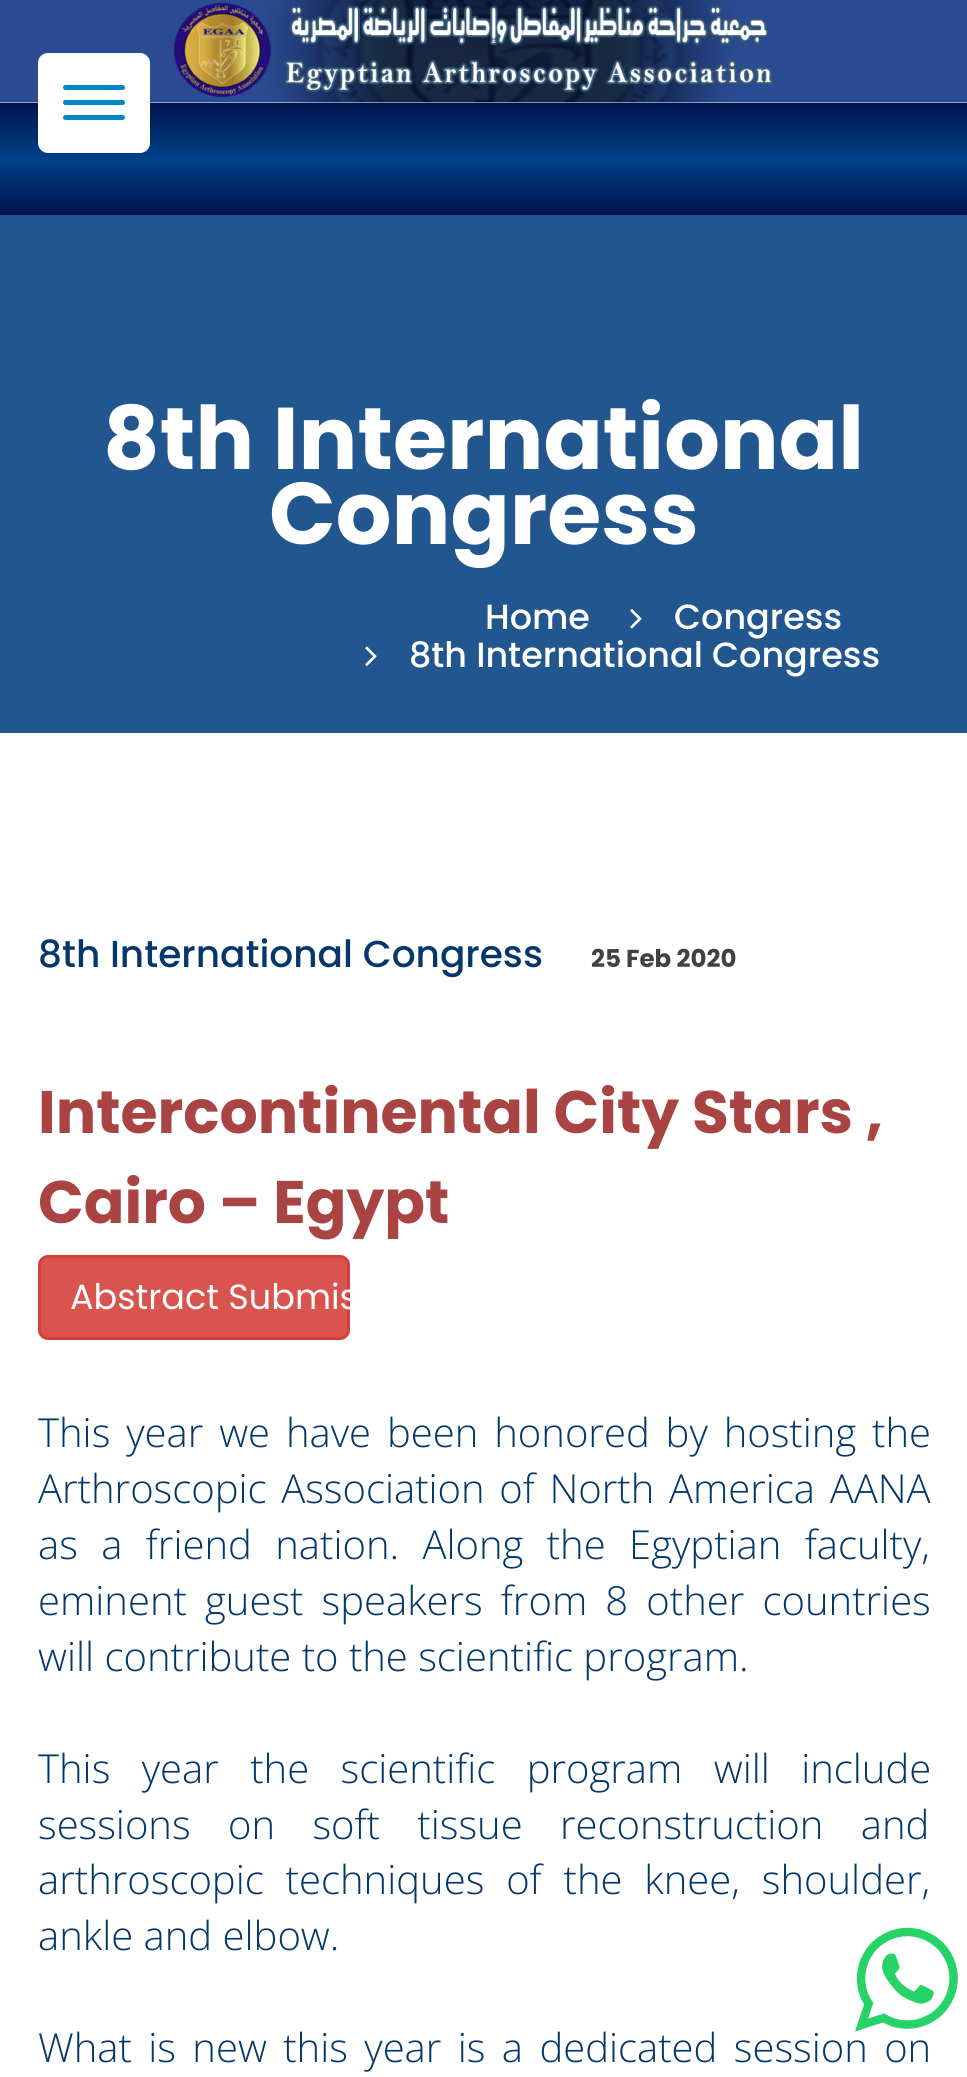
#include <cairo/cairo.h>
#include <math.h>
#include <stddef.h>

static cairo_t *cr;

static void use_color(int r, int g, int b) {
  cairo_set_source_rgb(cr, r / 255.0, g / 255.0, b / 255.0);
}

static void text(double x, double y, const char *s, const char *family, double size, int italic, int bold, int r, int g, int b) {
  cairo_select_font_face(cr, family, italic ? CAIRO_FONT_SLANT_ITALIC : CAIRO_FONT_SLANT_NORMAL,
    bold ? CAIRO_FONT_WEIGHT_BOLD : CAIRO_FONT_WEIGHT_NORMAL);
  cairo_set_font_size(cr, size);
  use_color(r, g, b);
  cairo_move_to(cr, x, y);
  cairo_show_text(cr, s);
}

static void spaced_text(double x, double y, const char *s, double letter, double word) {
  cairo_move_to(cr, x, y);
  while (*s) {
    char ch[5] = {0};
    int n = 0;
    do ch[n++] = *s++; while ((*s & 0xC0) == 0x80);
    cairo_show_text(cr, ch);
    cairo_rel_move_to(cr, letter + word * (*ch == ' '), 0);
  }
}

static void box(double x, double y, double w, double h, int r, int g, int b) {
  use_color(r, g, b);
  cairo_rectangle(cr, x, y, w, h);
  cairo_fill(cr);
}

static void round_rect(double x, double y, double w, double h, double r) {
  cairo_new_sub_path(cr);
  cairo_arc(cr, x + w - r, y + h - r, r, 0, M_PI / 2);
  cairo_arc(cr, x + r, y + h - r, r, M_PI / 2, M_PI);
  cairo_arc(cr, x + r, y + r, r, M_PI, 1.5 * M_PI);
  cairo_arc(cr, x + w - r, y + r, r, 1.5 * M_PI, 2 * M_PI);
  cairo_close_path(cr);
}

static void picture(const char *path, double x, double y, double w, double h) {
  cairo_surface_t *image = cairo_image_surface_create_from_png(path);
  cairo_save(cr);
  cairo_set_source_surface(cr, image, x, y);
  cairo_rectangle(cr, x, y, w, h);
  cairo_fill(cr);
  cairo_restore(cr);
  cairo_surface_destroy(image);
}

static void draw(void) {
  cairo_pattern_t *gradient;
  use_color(255, 255, 255);
  cairo_paint(cr);
  picture("img_01.png", 0, 0, 967, 103);
  gradient = cairo_pattern_create_linear(484, 102, 484, 215);
  cairo_pattern_add_color_stop_rgba(gradient, 0, 0.004, 0.075, 0.298, 1);
  cairo_pattern_add_color_stop_rgba(gradient, 0.5, 0, 0.255, 0.537, 1);
  cairo_pattern_add_color_stop_rgba(gradient, 1, 0.004, 0.075, 0.298, 1);
  cairo_set_source(cr, gradient);
  cairo_pattern_destroy(gradient);
  cairo_rectangle(cr, 0, 103, 967, 112);
  cairo_fill(cr);
  use_color(255, 255, 255);
  round_rect(38, 53, 112, 100, 10);
  cairo_fill(cr);
  use_color(0, 135, 201);
  round_rect(63, 85, 62, 5, 2.5);
  cairo_fill(cr);
  round_rect(63, 100, 62, 5, 2.5);
  cairo_fill(cr);
  round_rect(63, 115, 62, 5, 2.5);
  cairo_fill(cr);
  box(0, 215, 967, 518, 34, 86, 142);
  picture("img_02.png", 630, 609, 12, 20);
  picture("img_03.png", 365, 646, 12, 20);
  use_color(217, 83, 79);
  round_rect(39.5, 1256.5, 309, 82, 8.5);
  cairo_fill_preserve(cr);
  use_color(212, 63, 58);
  cairo_set_line_width(cr, 3);
  cairo_stroke(cr);
  text(103, 469, "8th International", "Poppins", 87.5, 0, 1, 255, 255, 255);
  text(269, 544, "Congress", "Poppins", 87.5, 0, 1, 255, 255, 255);
  text(485, 629, "Home", "Poppins Medium", 35, 0, 0, 255, 255, 255);
  text(674, 629, "Congress", "Poppins Medium", 35, 0, 0, 255, 255, 255);
  text(409, 667, "8th International Congress", "Poppins Medium", 35, 0, 0, 255, 255, 255);
  text(38, 967, "8th International Congress", "Poppins Medium", 37.5, 0, 0, 4, 55, 106);
  text(591, 967, "25 Feb 2020", "Poppins", 24.5, 0, 1, 65, 65, 65);
  text(38, 1133, "Intercontinental City Stars ,", "Poppins", 60, 0, 1, 169, 68, 66);
  text(38, 1223, "Cairo – Egypt", "Poppins", 60, 0, 1, 169, 68, 66);
  text(70, 1309, "Abstract Submis", "Poppins", 35, 0, 0, 255, 255, 255);
  cairo_select_font_face(cr, "Open Sans Light", CAIRO_FONT_SLANT_NORMAL, CAIRO_FONT_WEIGHT_NORMAL);
  cairo_set_font_size(cr, 40);
  use_color(4, 55, 106);
  spaced_text(38, 1447, "This year we have been honored by hosting the", 0, 5.5);
  spaced_text(38, 1503, "Arthroscopic Association of North America AANA", 0, 4.25);
  spaced_text(38, 1559, "as a friend nation. Along the Egyptian faculty,", 0, 13);
  spaced_text(38, 1615, "eminent guest speakers from 8 other countries", 0, 7.75);
  text(38, 1671, "will contribute to the scientific program.", "Open Sans Light", 40, 0, 0, 4, 55, 106);
  spaced_text(38, 1783, "This year the scientific program will include", 0, 21);
  spaced_text(38, 1839, "sessions on soft tissue reconstruction and", 0, 27);
  spaced_text(38, 1894, "arthroscopic techniques of the knee, shoulder,", 0, 11.5);
  text(38, 1950, "ankle and elbow.", "Open Sans Light", 40, 0, 0, 4, 55, 106);
  spaced_text(38, 2062, "What is new this year is a dedicated session on", 0, 6);
  picture("img_04.png", 855, 1927, 103, 105);
}

int main(void) {
  cairo_surface_t *surface = cairo_image_surface_create(CAIRO_FORMAT_RGB24, 967, 2077);
  cr = cairo_create(surface);
  cairo_font_options_t *options = cairo_font_options_create();
  cairo_font_options_set_hint_metrics(options, CAIRO_HINT_METRICS_OFF);
  cairo_font_options_set_hint_style(options, CAIRO_HINT_STYLE_NONE);
  cairo_set_font_options(cr, options);
  cairo_set_miter_limit(cr, 4);
  draw();
  cairo_surface_write_to_png(surface, "out.png");
  cairo_font_options_destroy(options);
  cairo_destroy(cr);
  cairo_surface_destroy(surface);
  return 0;
}
